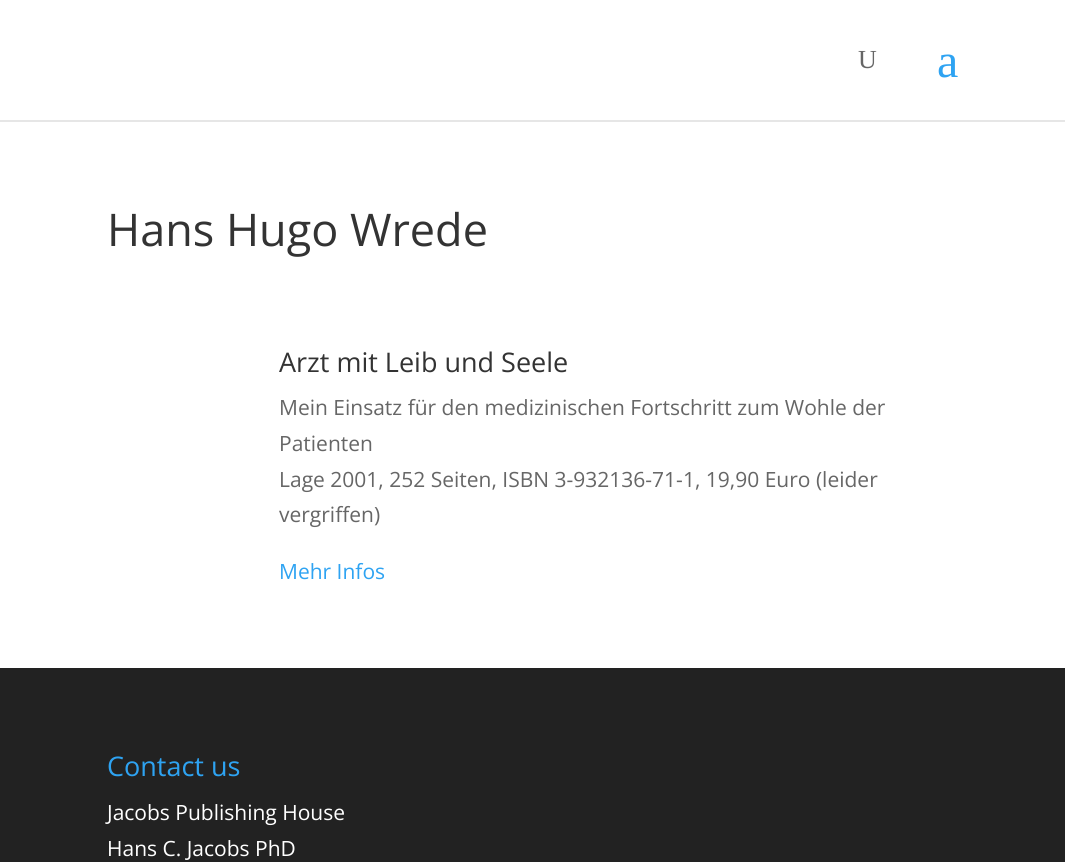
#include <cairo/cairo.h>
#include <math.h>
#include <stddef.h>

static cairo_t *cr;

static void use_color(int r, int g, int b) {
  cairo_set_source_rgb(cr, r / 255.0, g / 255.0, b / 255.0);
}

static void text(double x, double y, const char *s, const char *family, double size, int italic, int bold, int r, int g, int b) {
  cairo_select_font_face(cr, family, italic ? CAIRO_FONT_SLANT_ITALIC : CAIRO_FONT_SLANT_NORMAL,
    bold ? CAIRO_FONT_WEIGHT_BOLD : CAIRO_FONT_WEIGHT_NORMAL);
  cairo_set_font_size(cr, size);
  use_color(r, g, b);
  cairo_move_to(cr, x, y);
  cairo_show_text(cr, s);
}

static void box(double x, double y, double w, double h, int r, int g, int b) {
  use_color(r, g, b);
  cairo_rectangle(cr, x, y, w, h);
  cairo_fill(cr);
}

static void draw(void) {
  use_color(255, 255, 255);
  cairo_paint(cr);
  box(0, 120, 1065, 2, 230, 230, 230);
  box(0, 668, 1065, 194, 34, 34, 34);
  text(858, 68, "U", "Liberation Serif", 26, 0, 0, 102, 102, 102);
  text(937, 77, "a", "Liberation Serif", 48, 0, 0, 46, 163, 242);
  text(107, 246, "Hans Hugo Wrede", "Open Sans", 45, 0, 0, 51, 51, 51);
  text(279, 372, "Arzt mit Leib und Seele", "Open Sans", 27, 0, 0, 51, 51, 51);
  text(279, 415, "Mein Einsatz für den medizinischen Fortschritt zum Wohle der", "Open Sans", 21, 0, 0, 102, 102, 102);
  text(279, 451, "Patienten", "Open Sans", 21, 0, 0, 102, 102, 102);
  text(279, 487, "Lage 2001, 252 Seiten, ISBN 3-932136-71-1, 19,90 Euro (leider", "Open Sans", 21, 0, 0, 102, 102, 102);
  text(279, 522, "vergriffen)", "Open Sans", 21, 0, 0, 102, 102, 102);
  text(279, 579, "Mehr Infos", "Open Sans", 21, 0, 0, 46, 163, 242);
  text(107, 776, "Contact us", "Open Sans", 27, 0, 0, 46, 163, 242);
  text(107, 820, "Jacobs Publishing House", "Open Sans", 21, 0, 0, 255, 255, 255);
  text(107, 856, "Hans C. Jacobs PhD", "Open Sans", 21, 0, 0, 255, 255, 255);
}

int main(void) {
  cairo_surface_t *surface = cairo_image_surface_create(CAIRO_FORMAT_RGB24, 1065, 862);
  cr = cairo_create(surface);
  cairo_font_options_t *options = cairo_font_options_create();
  cairo_font_options_set_hint_metrics(options, CAIRO_HINT_METRICS_OFF);
  cairo_font_options_set_hint_style(options, CAIRO_HINT_STYLE_NONE);
  cairo_set_font_options(cr, options);
  cairo_set_miter_limit(cr, 4);
  draw();
  cairo_surface_write_to_png(surface, "out.png");
  cairo_font_options_destroy(options);
  cairo_destroy(cr);
  cairo_surface_destroy(surface);
  return 0;
}
